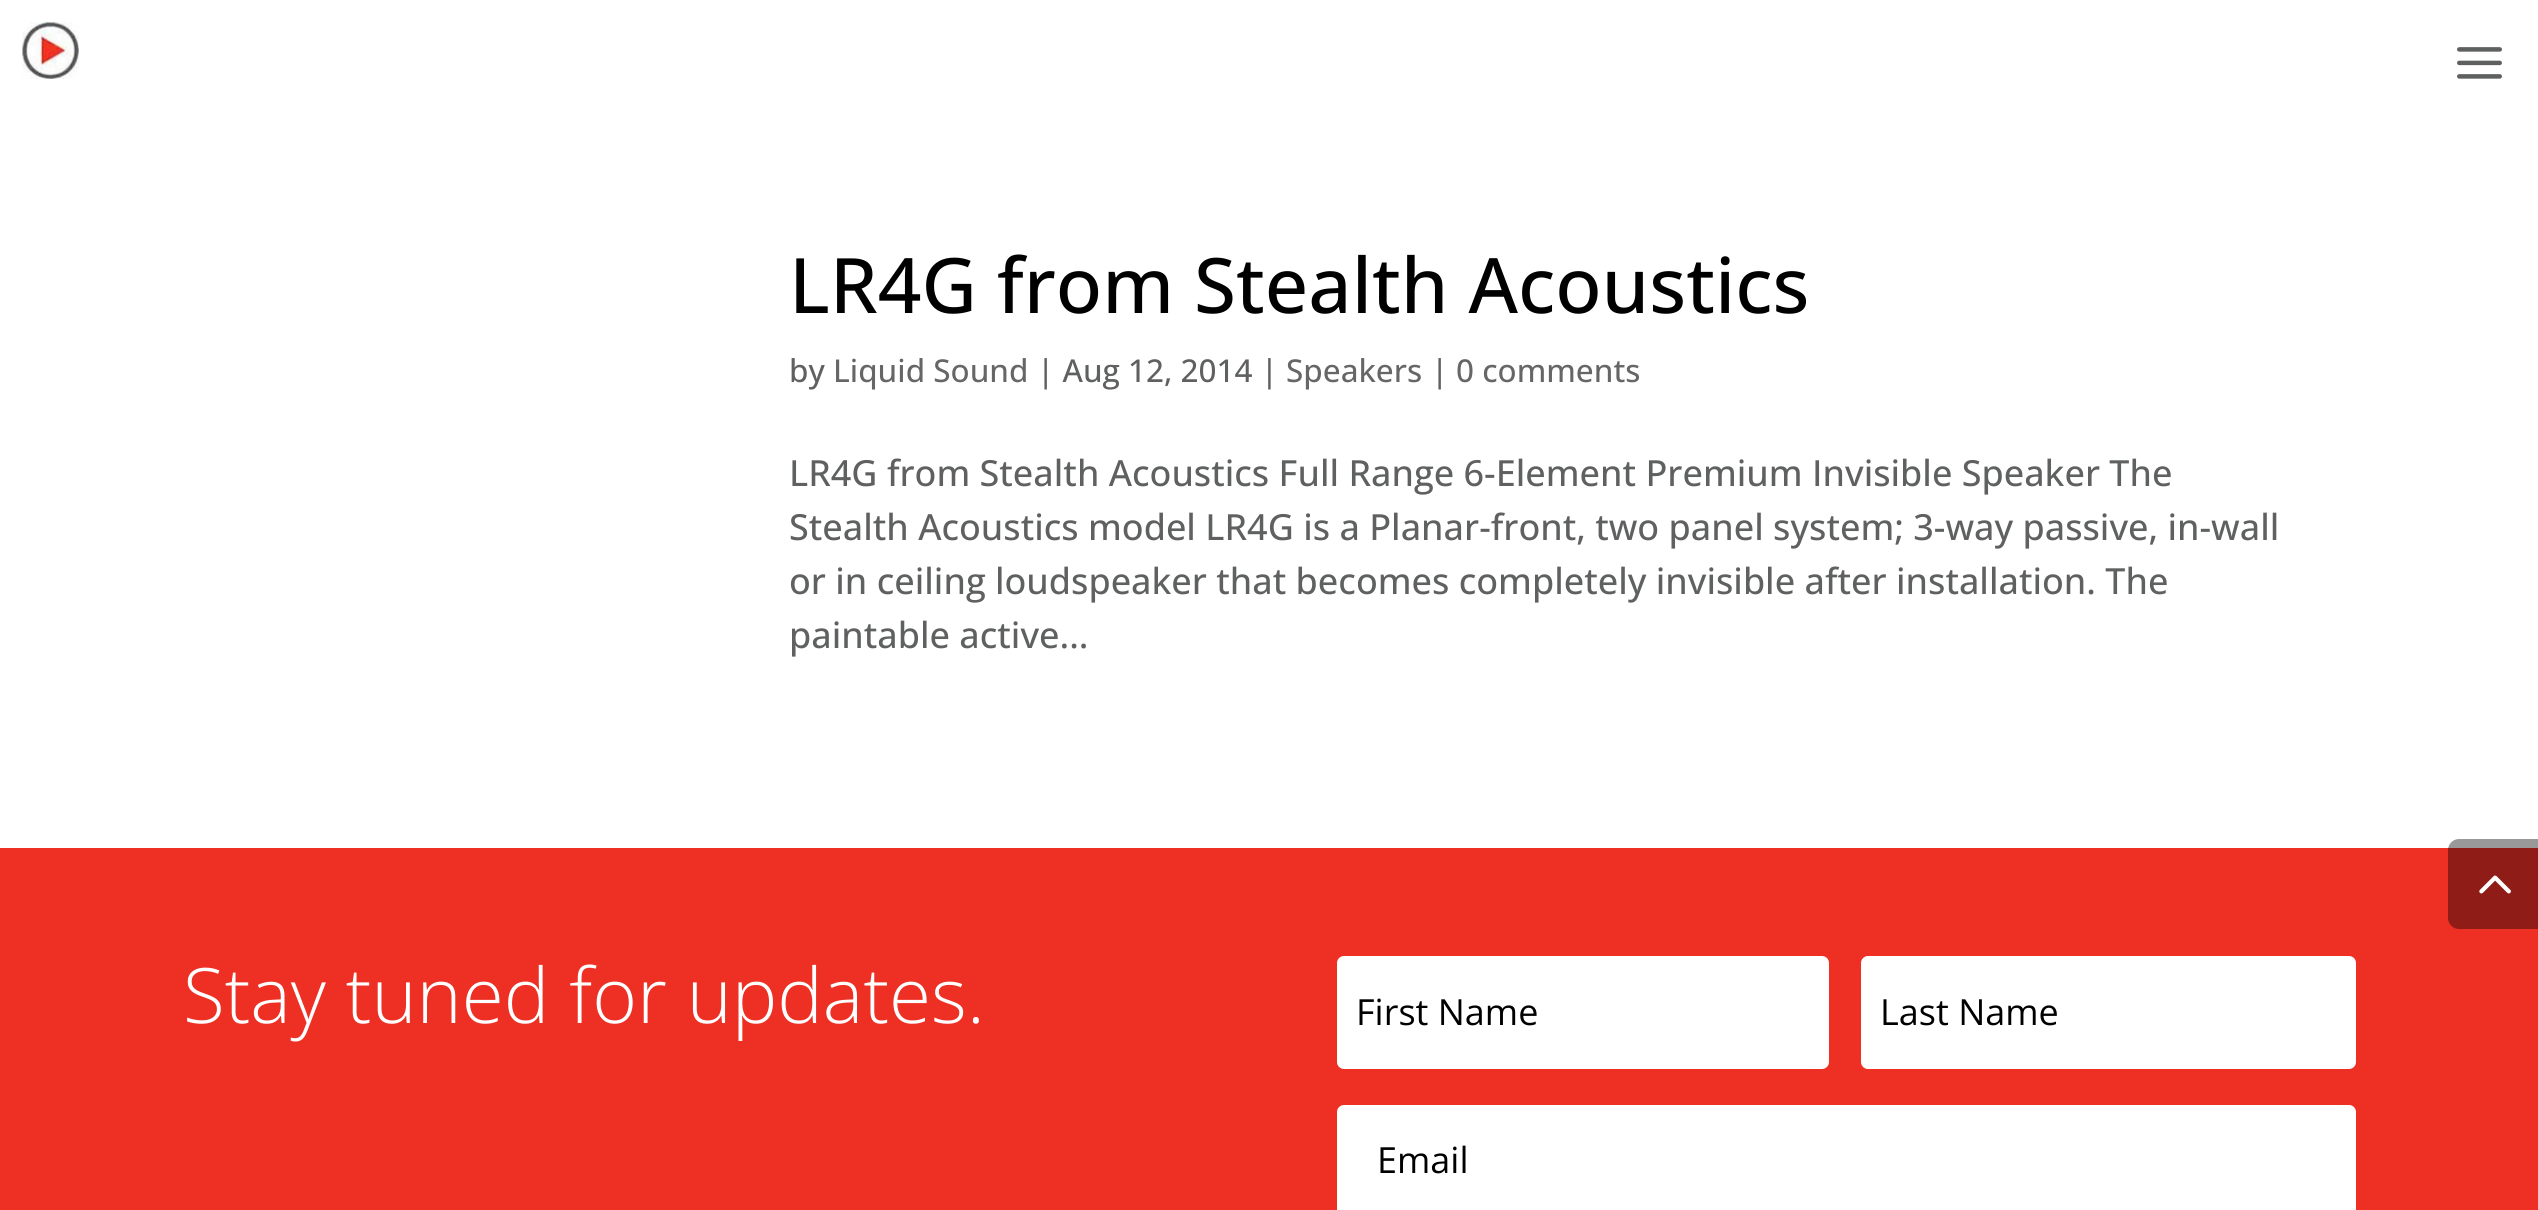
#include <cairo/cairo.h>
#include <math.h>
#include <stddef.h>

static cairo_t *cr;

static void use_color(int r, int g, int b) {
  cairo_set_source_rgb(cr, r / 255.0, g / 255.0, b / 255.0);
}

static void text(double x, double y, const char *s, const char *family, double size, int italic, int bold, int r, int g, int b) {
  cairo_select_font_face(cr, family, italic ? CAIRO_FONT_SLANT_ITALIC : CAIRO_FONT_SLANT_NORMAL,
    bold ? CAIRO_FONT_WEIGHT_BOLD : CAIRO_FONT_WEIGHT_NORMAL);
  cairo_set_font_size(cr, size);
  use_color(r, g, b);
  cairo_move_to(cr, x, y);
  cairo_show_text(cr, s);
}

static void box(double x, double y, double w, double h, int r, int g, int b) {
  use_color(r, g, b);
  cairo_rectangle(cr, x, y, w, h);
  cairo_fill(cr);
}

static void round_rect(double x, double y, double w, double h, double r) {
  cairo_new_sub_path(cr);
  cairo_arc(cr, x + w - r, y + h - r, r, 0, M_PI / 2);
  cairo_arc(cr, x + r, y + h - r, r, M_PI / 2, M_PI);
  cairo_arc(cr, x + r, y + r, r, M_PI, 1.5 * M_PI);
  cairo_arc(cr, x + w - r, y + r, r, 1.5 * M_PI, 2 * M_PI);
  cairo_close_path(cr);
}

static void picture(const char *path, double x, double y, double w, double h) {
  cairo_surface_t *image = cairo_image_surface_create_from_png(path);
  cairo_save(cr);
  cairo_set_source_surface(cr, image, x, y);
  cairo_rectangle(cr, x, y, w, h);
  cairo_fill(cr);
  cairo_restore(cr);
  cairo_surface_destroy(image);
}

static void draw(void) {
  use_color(255, 255, 255);
  cairo_paint(cr);
  picture("img_01.png", 22, 22, 57, 57);
  picture("img_02.png", 2457, 47, 45, 32);
  box(0, 848, 2538, 362, 238, 47, 36);
  use_color(255, 255, 255);
  round_rect(1337, 956, 492, 113, 7);
  cairo_fill(cr);
  round_rect(1861, 956, 495, 113, 7);
  cairo_fill(cr);
  round_rect(1337, 1105, 1019, 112, 7);
  cairo_fill(cr);
  cairo_set_source_rgba(cr, 0, 0, 0, 0.4);
  cairo_new_path(cr);
  cairo_move_to(cr, 2459, 839);
  cairo_line_to(cr, 2538, 839);
  cairo_line_to(cr, 2538, 929);
  cairo_line_to(cr, 2459, 929);
  cairo_curve_to(cr, 2453, 929, 2448, 924, 2448, 918);
  cairo_line_to(cr, 2448, 850);
  cairo_curve_to(cr, 2448, 844, 2453, 839, 2459, 839);
  cairo_close_path(cr);
  cairo_fill(cr);
  picture("img_03.png", 2479, 875, 32, 19);
  text(789, 313, "LR4G from Stealth Acoustics", "Open Sans Medium", 76.5, 0, 0, 0, 0, 0);
  text(789, 382, "by", "Open Sans Medium", 31.5, 0, 0, 95, 96, 96);
  text(833, 382, "Liquid Sound", "Open Sans Medium", 31.5, 0, 0, 102, 102, 102);
  text(1037, 382, "| Aug 12, 2014 |", "Open Sans Medium", 31.5, 0, 0, 95, 96, 96);
  text(1286, 382, "Speakers", "Open Sans Medium", 31.5, 0, 0, 102, 102, 102);
  text(1431, 382, "|", "Open Sans Medium", 31.5, 0, 0, 95, 96, 96);
  text(1456, 382, "0 comments", "Open Sans Medium", 31.5, 0, 0, 102, 102, 102);
  text(789, 486, "LR4G from Stealth Acoustics Full Range 6-Element Premium Invisible Speaker The", "Open Sans Medium", 36, 0, 0, 95, 96, 96);
  text(789, 540, "Stealth Acoustics model LR4G is a Planar-front, two panel system; 3-way passive, in-wall", "Open Sans Medium", 36, 0, 0, 95, 96, 96);
  text(789, 594, "or in ceiling loudspeaker that becomes completely invisible after installation. The", "Open Sans Medium", 36, 0, 0, 95, 96, 96);
  text(789, 648, "paintable active...", "Open Sans Medium", 36, 0, 0, 95, 96, 96);
  text(183, 1023, "Stay tuned for updates.", "Open Sans Light", 76.5, 0, 0, 255, 255, 255);
  text(1356, 1025, "First Name", "Open Sans", 36, 0, 0, 0, 0, 0);
  text(1880, 1025, "Last Name", "Open Sans", 36, 0, 0, 0, 0, 0);
  text(1377, 1173, "Email", "Open Sans", 36, 0, 0, 0, 0, 0);
}

int main(void) {
  cairo_surface_t *surface = cairo_image_surface_create(CAIRO_FORMAT_RGB24, 2538, 1210);
  cr = cairo_create(surface);
  cairo_font_options_t *options = cairo_font_options_create();
  cairo_font_options_set_hint_metrics(options, CAIRO_HINT_METRICS_OFF);
  cairo_font_options_set_hint_style(options, CAIRO_HINT_STYLE_NONE);
  cairo_set_font_options(cr, options);
  cairo_set_miter_limit(cr, 4);
  draw();
  cairo_surface_write_to_png(surface, "out.png");
  cairo_font_options_destroy(options);
  cairo_destroy(cr);
  cairo_surface_destroy(surface);
  return 0;
}
